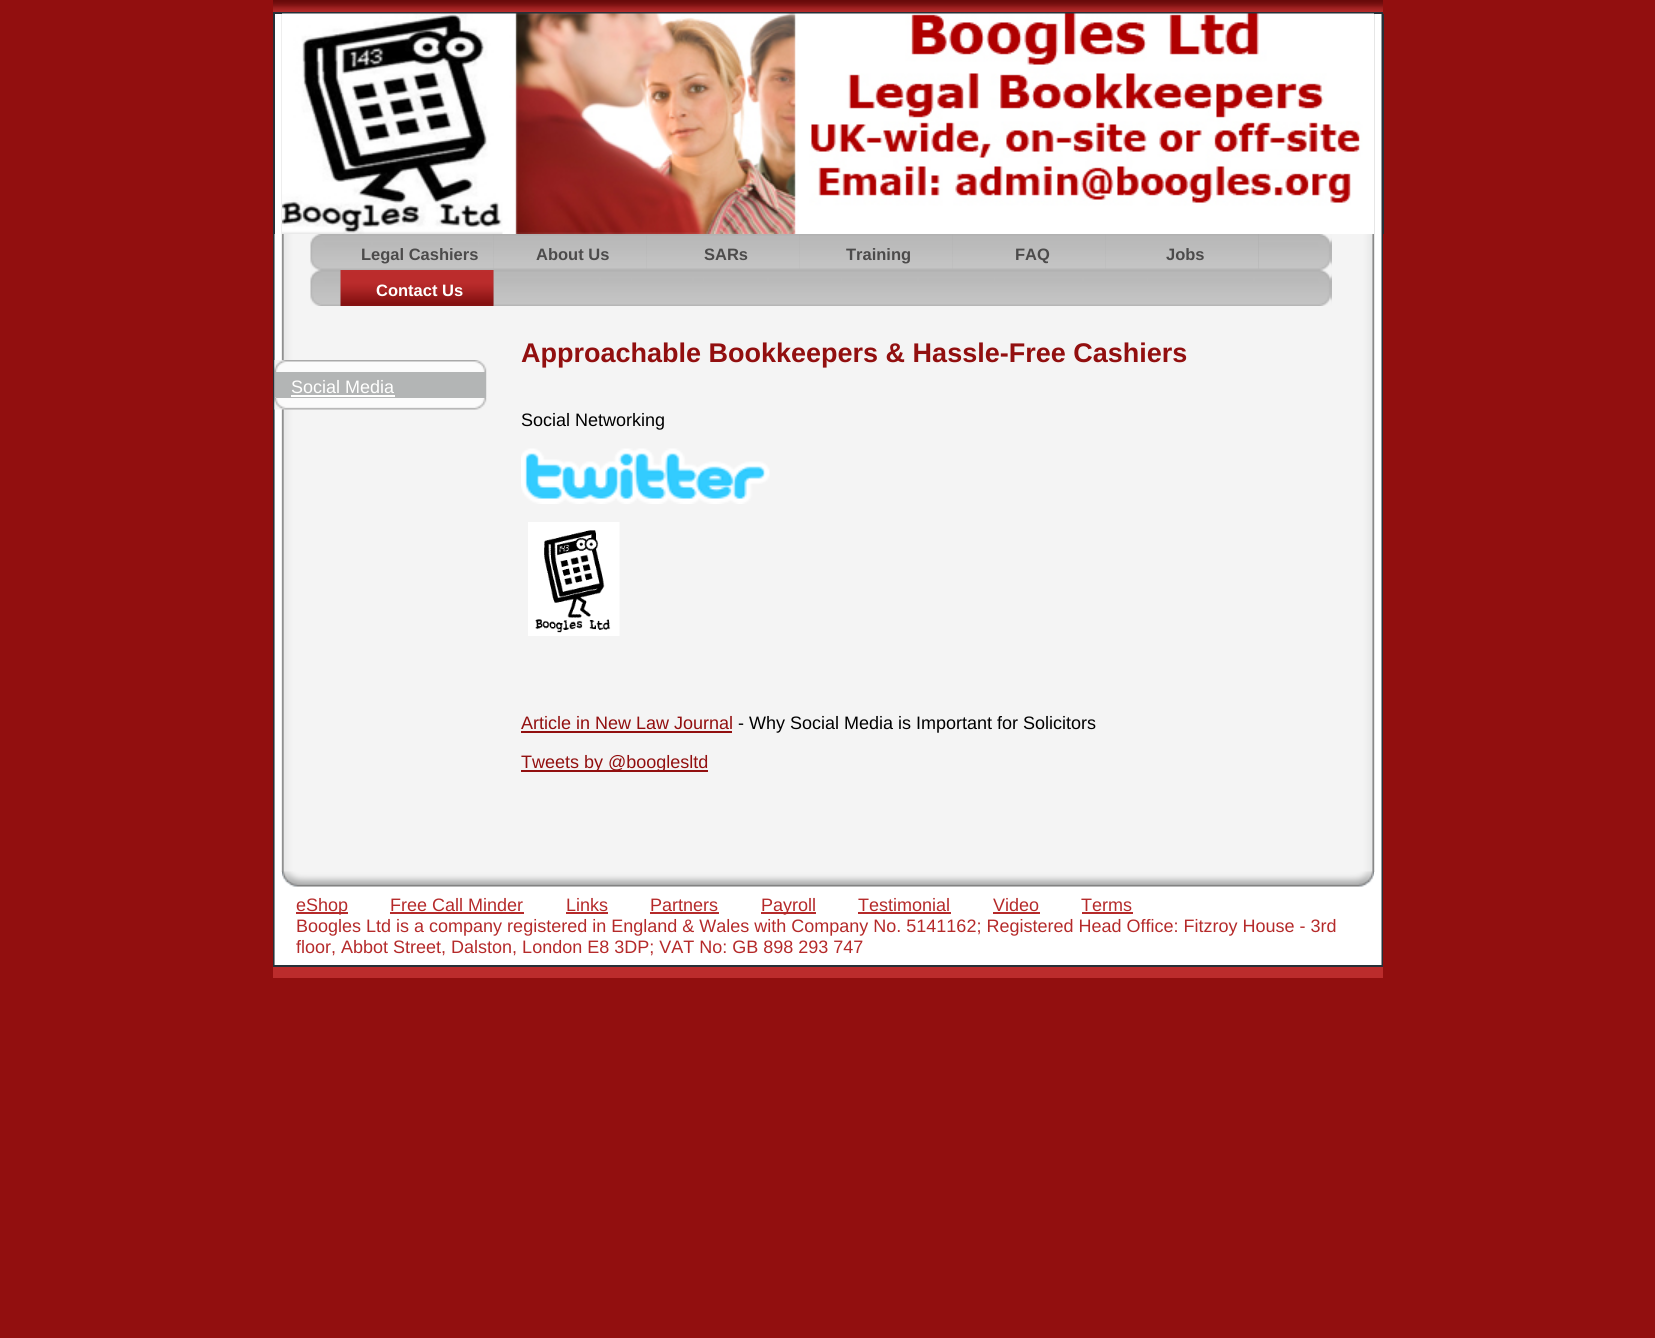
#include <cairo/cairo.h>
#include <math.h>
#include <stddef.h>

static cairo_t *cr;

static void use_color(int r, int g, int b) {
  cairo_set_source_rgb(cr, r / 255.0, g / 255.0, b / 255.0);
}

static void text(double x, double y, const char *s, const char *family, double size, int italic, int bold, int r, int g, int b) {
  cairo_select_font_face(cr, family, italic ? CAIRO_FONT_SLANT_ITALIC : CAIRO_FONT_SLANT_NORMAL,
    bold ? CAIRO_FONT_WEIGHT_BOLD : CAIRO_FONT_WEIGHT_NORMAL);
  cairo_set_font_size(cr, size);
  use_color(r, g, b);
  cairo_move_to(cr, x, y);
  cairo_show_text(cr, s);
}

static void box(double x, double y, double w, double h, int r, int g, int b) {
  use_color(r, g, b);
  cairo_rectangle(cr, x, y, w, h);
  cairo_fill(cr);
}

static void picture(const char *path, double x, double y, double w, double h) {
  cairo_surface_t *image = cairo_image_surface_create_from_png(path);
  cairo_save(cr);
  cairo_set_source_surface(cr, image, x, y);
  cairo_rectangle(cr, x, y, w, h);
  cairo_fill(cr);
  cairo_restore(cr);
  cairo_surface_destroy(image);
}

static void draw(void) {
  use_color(146, 15, 15);
  cairo_paint(cr);
  box(274, 14, 1108, 951, 255, 255, 255);
  picture("img_01.png", 273, 14, 1110, 951);
  picture("img_02.png", 273, 0, 1110, 12);
  box(273, 12, 1110, 2, 38, 48, 56);
  box(1383, 14, 1, 220, 38, 48, 56);
  box(274, 14, 1, 220, 38, 48, 56);
  picture("img_03.png", 282, 13, 1092, 221);
  picture("img_04.png", 310, 234, 1022, 72);
  picture("img_05.png", 493, 234, 1, 35);
  picture("img_06.png", 492, 234, 2, 35);
  picture("img_05.png", 646, 234, 1, 35);
  picture("img_07.png", 493, 234, 154, 35);
  picture("img_05.png", 799, 234, 1, 35);
  picture("img_07.png", 646, 234, 154, 35);
  picture("img_05.png", 952, 234, 1, 35);
  picture("img_07.png", 799, 234, 154, 35);
  picture("img_05.png", 1105, 234, 1, 35);
  picture("img_07.png", 952, 234, 154, 35);
  picture("img_05.png", 1258, 234, 1, 35);
  picture("img_07.png", 1105, 234, 154, 35);
  picture("img_05.png", 493, 270, 1, 35);
  picture("img_08.png", 340, 270, 154, 36);
  picture("img_09.png", 274, 360, 213, 12);
  picture("img_10.png", 274, 372, 213, 26);
  picture("img_11.png", 274, 397, 213, 13);
  box(276, 372, 210, 26, 179, 181, 181);
  box(291, 395, 104, 2, 255, 255, 254);
  picture("img_12.png", 521, 448, 249, 56);
  picture("img_13.png", 528, 522, 92, 114);
  box(521, 731, 211, 2, 146, 15, 15);
  box(521, 770, 187, 2, 146, 15, 15);
  box(281, 872, 1094, 93, 255, 255, 255);
  picture("img_14.png", 282, 871, 1092, 16);
  box(296, 912, 52, 2, 181, 42, 42);
  box(390, 912, 134, 2, 181, 42, 42);
  box(566, 912, 42, 2, 181, 42, 42);
  box(650, 912, 69, 2, 181, 42, 42);
  box(761, 912, 55, 2, 181, 42, 42);
  box(858, 912, 93, 2, 181, 42, 42);
  box(993, 912, 47, 2, 181, 42, 42);
  box(1082, 912, 51, 2, 181, 42, 42);
  box(273, 967, 1110, 11, 187, 44, 44);
  box(273, 965, 1110, 2, 38, 48, 56);
  text(361, 260, "Legal Cashiers", "Liberation Sans", 16.5, 0, 1, 76, 75, 75);
  text(536, 260, "About Us", "Liberation Sans", 16.5, 0, 1, 76, 75, 75);
  text(704, 260, "SARs", "Liberation Sans", 16.5, 0, 1, 76, 75, 75);
  text(846, 260, "Training", "Liberation Sans", 16.5, 0, 1, 76, 75, 75);
  text(1015, 260, "FAQ", "Liberation Sans", 16.5, 0, 1, 76, 75, 75);
  text(1166, 260, "Jobs", "Liberation Sans", 16.5, 0, 1, 76, 75, 75);
  text(376, 296, "Contact Us", "Liberation Sans", 16.5, 0, 1, 255, 255, 254);
  text(291, 393, "Social Media", "Liberation Sans", 18, 0, 0, 255, 255, 254);
  text(521, 362, "Approachable Bookkeepers & Hassle-Free Cashiers", "Liberation Sans", 27, 0, 1, 146, 15, 15);
  text(521, 426, "Social Networking", "Liberation Sans", 18, 0, 0, 0, 0, 0);
  text(521, 729, "Article in New Law Journal", "Liberation Sans", 18, 0, 0, 146, 15, 15);
  text(738, 729, "- Why Social Media is Important for Solicitors", "Liberation Sans", 18, 0, 0, 0, 0, 0);
  text(521, 768, "Tweets by @booglesltd", "Liberation Sans", 18, 0, 0, 146, 15, 15);
  text(296, 911, "eShop", "Liberation Sans", 18, 0, 0, 181, 42, 42);
  text(390, 911, "Free Call Minder", "Liberation Sans", 18, 0, 0, 181, 42, 42);
  text(566, 911, "Links", "Liberation Sans", 18, 0, 0, 181, 42, 42);
  text(650, 911, "Partners", "Liberation Sans", 18, 0, 0, 181, 42, 42);
  text(761, 911, "Payroll", "Liberation Sans", 18, 0, 0, 181, 42, 42);
  text(858, 911, "Testimonial", "Liberation Sans", 18, 0, 0, 181, 42, 42);
  text(993, 911, "Video", "Liberation Sans", 18, 0, 0, 181, 42, 42);
  text(1081, 911, "Terms", "Liberation Sans", 18, 0, 0, 181, 42, 42);
  text(296, 932, "Boogles Ltd is a company registered in England & Wales with Company No. 5141162; Registered Head Office: Fitzroy House - 3rd", "Liberation Sans", 18, 0, 0, 181, 42, 42);
  text(296, 953, "floor, Abbot Street, Dalston, London E8 3DP; VAT No: GB 898 293 747", "Liberation Sans", 18, 0, 0, 181, 42, 42);
}

int main(void) {
  cairo_surface_t *surface = cairo_image_surface_create(CAIRO_FORMAT_RGB24, 1655, 1338);
  cr = cairo_create(surface);
  cairo_font_options_t *options = cairo_font_options_create();
  cairo_font_options_set_hint_metrics(options, CAIRO_HINT_METRICS_OFF);
  cairo_font_options_set_hint_style(options, CAIRO_HINT_STYLE_NONE);
  cairo_set_font_options(cr, options);
  cairo_set_miter_limit(cr, 4);
  draw();
  cairo_surface_write_to_png(surface, "out.png");
  cairo_font_options_destroy(options);
  cairo_destroy(cr);
  cairo_surface_destroy(surface);
  return 0;
}
